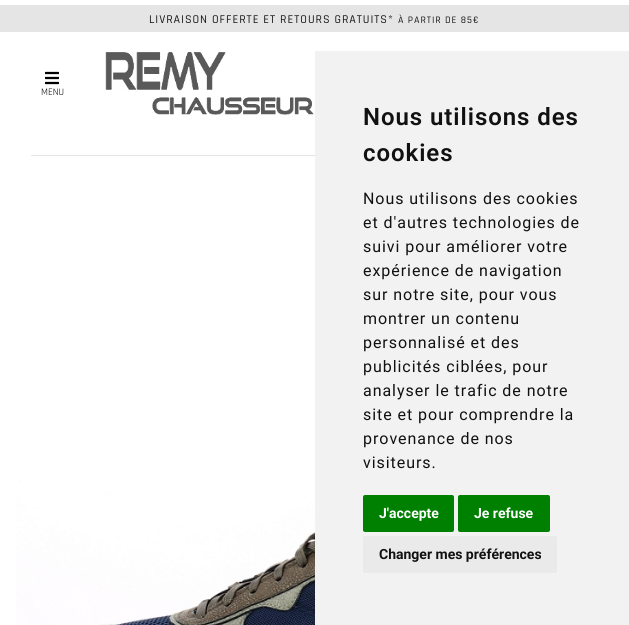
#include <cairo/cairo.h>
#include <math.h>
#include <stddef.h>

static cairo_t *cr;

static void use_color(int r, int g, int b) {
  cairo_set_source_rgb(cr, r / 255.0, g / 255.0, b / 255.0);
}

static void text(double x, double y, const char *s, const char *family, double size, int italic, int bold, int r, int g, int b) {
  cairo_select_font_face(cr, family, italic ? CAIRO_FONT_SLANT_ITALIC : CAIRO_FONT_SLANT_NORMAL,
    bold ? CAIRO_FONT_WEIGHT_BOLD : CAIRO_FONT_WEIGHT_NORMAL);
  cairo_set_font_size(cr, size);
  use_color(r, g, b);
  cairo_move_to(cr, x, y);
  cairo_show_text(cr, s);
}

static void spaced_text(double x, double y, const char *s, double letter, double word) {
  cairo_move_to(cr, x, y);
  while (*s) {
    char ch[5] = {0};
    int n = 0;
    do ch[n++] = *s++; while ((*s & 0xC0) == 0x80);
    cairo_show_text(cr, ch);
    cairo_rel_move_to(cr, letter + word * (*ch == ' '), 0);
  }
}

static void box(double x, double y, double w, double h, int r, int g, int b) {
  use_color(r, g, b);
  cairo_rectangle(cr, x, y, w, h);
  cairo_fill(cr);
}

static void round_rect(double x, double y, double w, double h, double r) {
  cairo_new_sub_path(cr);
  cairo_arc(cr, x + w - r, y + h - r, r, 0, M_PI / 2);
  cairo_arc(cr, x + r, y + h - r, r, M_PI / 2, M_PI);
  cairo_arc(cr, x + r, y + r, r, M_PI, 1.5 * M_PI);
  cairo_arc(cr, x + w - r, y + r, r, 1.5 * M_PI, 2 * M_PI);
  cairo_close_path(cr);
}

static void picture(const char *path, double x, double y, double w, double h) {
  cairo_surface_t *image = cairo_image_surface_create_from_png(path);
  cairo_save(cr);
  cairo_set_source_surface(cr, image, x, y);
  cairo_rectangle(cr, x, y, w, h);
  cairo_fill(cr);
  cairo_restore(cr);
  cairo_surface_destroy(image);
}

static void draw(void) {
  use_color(255, 255, 255);
  cairo_paint(cr);
  box(0, 5, 629, 27, 229, 229, 229);
  picture("img_01.png", 45, 71, 14, 14);
  picture("img_02.png", 105, 52, 209, 63);
  box(31, 155, 284, 1, 229, 229, 229);
  picture("img_03.png", 16, 302, 299, 323);
  box(315, 51, 314, 574, 242, 242, 242);
  use_color(0, 128, 0);
  round_rect(363, 495, 91, 37, 2);
  cairo_fill(cr);
  round_rect(458, 495, 92, 37, 2);
  cairo_fill(cr);
  use_color(234, 234, 234);
  round_rect(363, 536, 194, 37, 2);
  cairo_fill(cr);
  cairo_select_font_face(cr, "Rajdhani Medium", CAIRO_FONT_SLANT_NORMAL, CAIRO_FONT_WEIGHT_NORMAL);
  cairo_set_font_size(cr, 12);
  use_color(26, 26, 26);
  spaced_text(149, 23, "LIVRAISON OFFERTE ET RETOURS GRATUITS*", 0.95, 0);
  cairo_set_font_size(cr, 10);
  spaced_text(398, 23, "À PARTIR DE 85€", 0.95, 0);
  text(41, 95, "MENU", "Rajdhani", 10, 0, 0, 0, 0, 0);
  cairo_select_font_face(cr, "Roboto SemiBold", CAIRO_FONT_SLANT_NORMAL, CAIRO_FONT_WEIGHT_NORMAL);
  cairo_set_font_size(cr, 24);
  use_color(17, 17, 17);
  spaced_text(363, 125, "Nous utilisons des", 0.95, 0);
  spaced_text(363, 161, "cookies", 0.95, 0);
  cairo_select_font_face(cr, "Roboto", CAIRO_FONT_SLANT_NORMAL, CAIRO_FONT_WEIGHT_NORMAL);
  cairo_set_font_size(cr, 16);
  spaced_text(363, 204, "Nous utilisons des cookies", 0.95, 0);
  spaced_text(363, 228, "et d'autres technologies de", 0.95, 0);
  spaced_text(363, 252, "suivi pour améliorer votre", 0.95, 0);
  spaced_text(363, 276, "expérience de navigation", 0.95, 0);
  spaced_text(363, 300, "sur notre site, pour vous", 0.95, 0);
  spaced_text(363, 324, "montrer un contenu", 0.95, 0);
  spaced_text(363, 348, "personnalisé et des", 0.95, 0);
  spaced_text(363, 372, "publicités ciblées, pour", 0.95, 0);
  spaced_text(363, 396, "analyser le trafic de notre", 0.95, 0);
  spaced_text(363, 420, "site et pour comprendre la", 0.95, 0);
  spaced_text(363, 444, "provenance de nos", 0.95, 0);
  spaced_text(363, 468, "visiteurs.", 0.95, 0);
  text(379, 518, "J'accepte", "Roboto", 14, 0, 1, 255, 255, 255);
  text(474, 518, "Je refuse", "Roboto", 14, 0, 1, 255, 255, 255);
  text(379, 559, "Changer mes préférences", "Roboto", 14, 0, 1, 17, 17, 17);
}

int main(void) {
  cairo_surface_t *surface = cairo_image_surface_create(CAIRO_FORMAT_RGB24, 629, 625);
  cr = cairo_create(surface);
  cairo_font_options_t *options = cairo_font_options_create();
  cairo_font_options_set_hint_metrics(options, CAIRO_HINT_METRICS_OFF);
  cairo_font_options_set_hint_style(options, CAIRO_HINT_STYLE_NONE);
  cairo_set_font_options(cr, options);
  cairo_set_miter_limit(cr, 4);
  draw();
  cairo_surface_write_to_png(surface, "out.png");
  cairo_font_options_destroy(options);
  cairo_destroy(cr);
  cairo_surface_destroy(surface);
  return 0;
}
